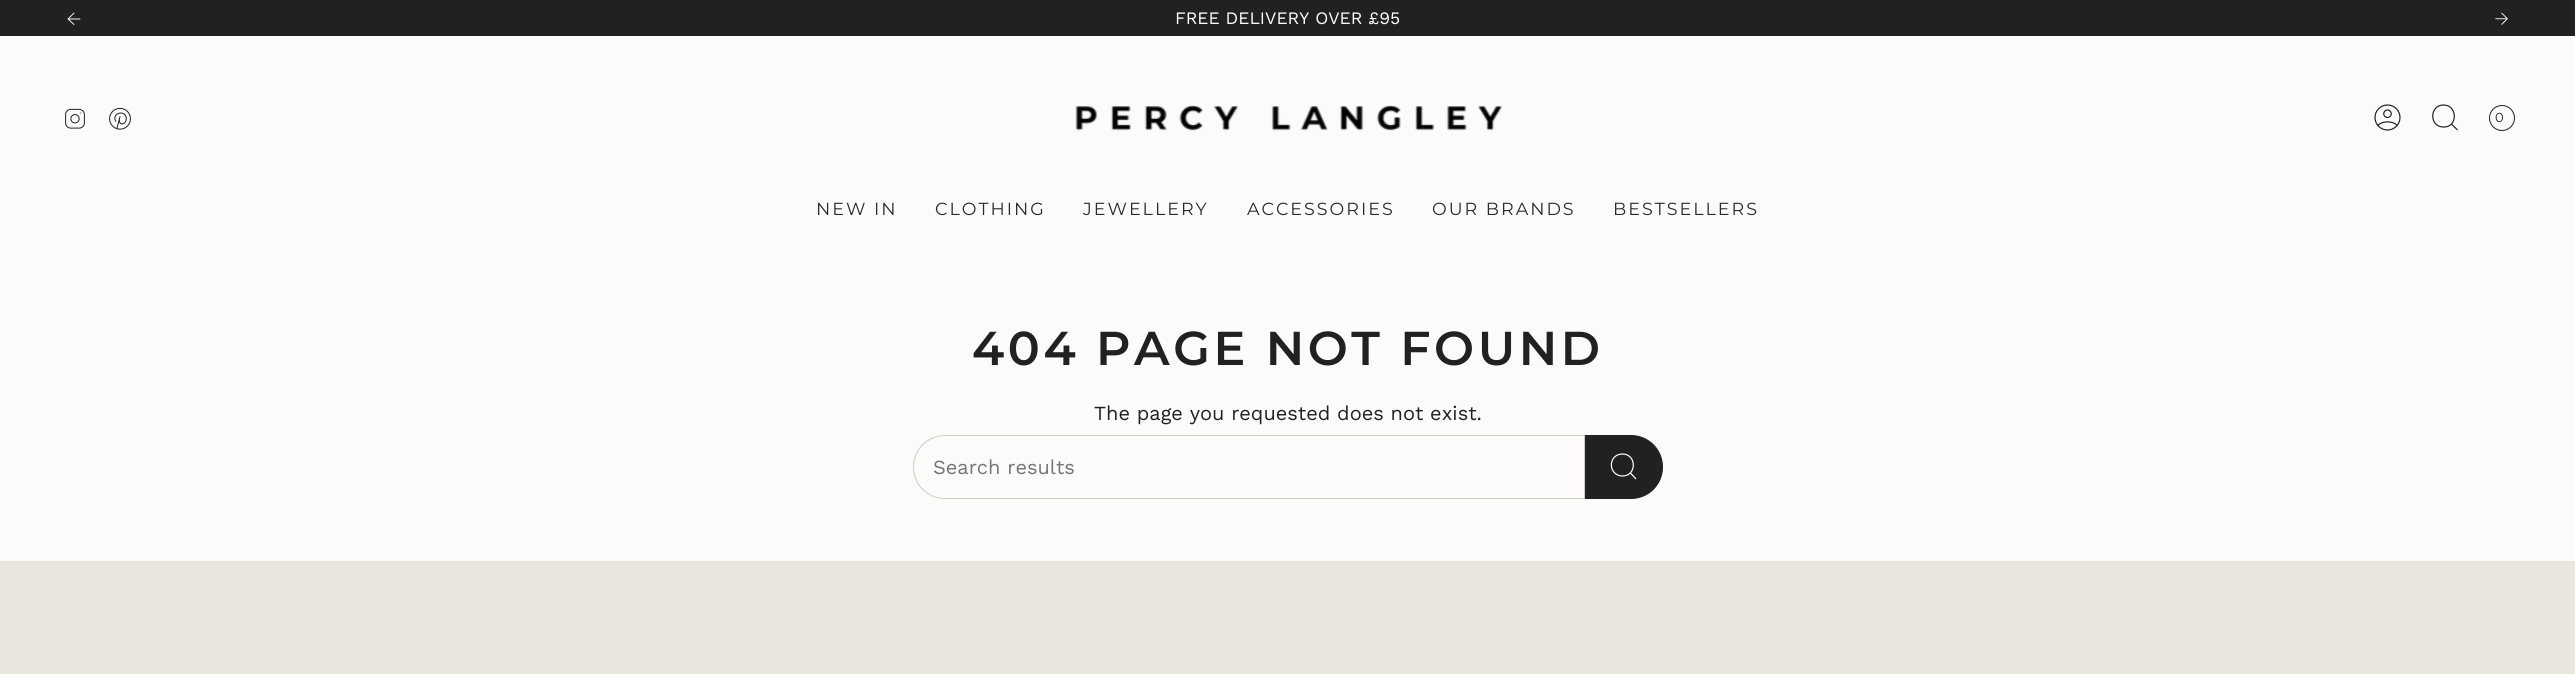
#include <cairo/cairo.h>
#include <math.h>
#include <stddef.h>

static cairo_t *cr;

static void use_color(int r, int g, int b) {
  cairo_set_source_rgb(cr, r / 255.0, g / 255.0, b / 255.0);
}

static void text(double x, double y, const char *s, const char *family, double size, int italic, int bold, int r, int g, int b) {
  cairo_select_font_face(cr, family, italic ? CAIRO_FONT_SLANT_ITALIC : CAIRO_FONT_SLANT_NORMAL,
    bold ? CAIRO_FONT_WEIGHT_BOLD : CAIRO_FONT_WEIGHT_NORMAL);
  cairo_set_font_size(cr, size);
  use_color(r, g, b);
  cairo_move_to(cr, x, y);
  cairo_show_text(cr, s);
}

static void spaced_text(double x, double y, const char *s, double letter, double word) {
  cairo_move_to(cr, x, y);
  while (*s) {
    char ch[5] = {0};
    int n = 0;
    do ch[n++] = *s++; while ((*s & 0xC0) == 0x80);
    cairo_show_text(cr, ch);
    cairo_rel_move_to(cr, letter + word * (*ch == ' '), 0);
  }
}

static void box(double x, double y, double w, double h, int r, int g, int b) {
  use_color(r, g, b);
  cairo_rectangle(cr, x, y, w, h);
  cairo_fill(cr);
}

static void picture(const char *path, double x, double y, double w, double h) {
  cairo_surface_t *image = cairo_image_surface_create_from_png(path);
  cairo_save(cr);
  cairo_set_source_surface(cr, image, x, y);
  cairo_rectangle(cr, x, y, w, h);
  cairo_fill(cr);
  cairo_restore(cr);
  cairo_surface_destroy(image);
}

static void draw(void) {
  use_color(252, 251, 249);
  cairo_paint(cr);
  box(0, 0, 2575, 36, 33, 33, 33);
  cairo_new_path(cr);
  cairo_move_to(cr, 80, 19);
  cairo_line_to(cr, 68, 19);
  cairo_move_to(cr, 68, 19);
  cairo_line_to(cr, 74, 13);
  cairo_move_to(cr, 68, 19);
  cairo_line_to(cr, 74, 24.5);
  use_color(255, 255, 255);
  cairo_set_line_width(cr, 0.9);
  cairo_set_line_cap(cr, CAIRO_LINE_CAP_ROUND);
  cairo_set_line_join(cr, CAIRO_LINE_JOIN_ROUND);
  cairo_stroke(cr);
  picture("img_01.png", 2495, 12, 13, 13);
  picture("img_02.png", 65, 108, 20, 21);
  picture("img_03.png", 109, 107, 22, 23);
  picture("img_04.png", 1075, 105, 427, 26);
  picture("img_05.png", 2374, 104, 27, 27);
  cairo_new_path(cr);
  cairo_move_to(cr, 2443.5, 105);
  cairo_curve_to(cr, 2458, 105, 2458, 128, 2443, 127);
  cairo_curve_to(cr, 2429, 126.5, 2429.5, 105, 2443.5, 105);
  cairo_close_path(cr);
  cairo_move_to(cr, 2451.5, 124);
  cairo_line_to(cr, 2457.5, 130);
  use_color(33, 33, 33);
  cairo_set_line_width(cr, 1.2);
  cairo_set_line_cap(cr, CAIRO_LINE_CAP_BUTT);
  cairo_set_line_join(cr, CAIRO_LINE_JOIN_MITER);
  cairo_stroke(cr);
  cairo_arc(cr, 2502, 118, 12.5, 0, 2 * M_PI);
  cairo_set_line_width(cr, 1);
  cairo_stroke(cr);
  cairo_new_path(cr);
  cairo_move_to(cr, 945, 435.5);
  cairo_line_to(cr, 1584.5, 435.5);
  cairo_line_to(cr, 1584.5, 498.5);
  cairo_line_to(cr, 945, 498.5);
  cairo_curve_to(cr, 927.5, 498.5, 913.5, 484.5, 913.5, 467);
  cairo_curve_to(cr, 913.5, 449.5, 927.5, 435.5, 945, 435.5);
  cairo_close_path(cr);
  use_color(209, 205, 196);
  cairo_stroke(cr);
  use_color(33, 33, 33);
  cairo_new_path(cr);
  cairo_move_to(cr, 1585.5, 435.5);
  cairo_line_to(cr, 1631, 435.5);
  cairo_curve_to(cr, 1648.5, 435.5, 1662.5, 449.5, 1662.5, 467);
  cairo_curve_to(cr, 1662.5, 484.5, 1648.5, 498.5, 1631, 498.5);
  cairo_line_to(cr, 1585.5, 498.5);
  cairo_close_path(cr);
  cairo_fill_preserve(cr);
  cairo_stroke(cr);
  cairo_new_path(cr);
  cairo_move_to(cr, 1622.5, 454);
  cairo_curve_to(cr, 1637, 454, 1637, 476.5, 1622, 476);
  cairo_curve_to(cr, 1607.5, 475, 1608, 454, 1622.5, 454);
  cairo_close_path(cr);
  cairo_move_to(cr, 1630, 472.5);
  cairo_line_to(cr, 1636, 479);
  use_color(255, 255, 255);
  cairo_set_line_width(cr, 1.2);
  cairo_stroke(cr);
  box(0, 561, 2575, 113, 234, 230, 221);
  text(1175, 24, "FREE DELIVERY OVER £95", "Work Sans", 17.5, 0, 0, 255, 255, 255);
  cairo_select_font_face(cr, "Montserrat", CAIRO_FONT_SLANT_NORMAL, CAIRO_FONT_WEIGHT_NORMAL);
  cairo_set_font_size(cr, 13);
  use_color(33, 33, 33);
  spaced_text(2495, 122, "0", 2, 0);
  cairo_set_font_size(cr, 17.5);
  use_color(40, 44, 46);
  spaced_text(816, 215, "NEW IN", 2, 0);
  spaced_text(935, 215, "CLOTHING", 2, 0);
  spaced_text(1083, 215, "JEWELLERY", 2, 0);
  spaced_text(1247, 215, "ACCESSORIES", 2, 0);
  spaced_text(1432, 215, "OUR BRANDS", 2, 0);
  spaced_text(1613, 215, "BESTSELLERS", 2, 0);
  cairo_select_font_face(cr, "Montserrat SemiBold", CAIRO_FONT_SLANT_NORMAL, CAIRO_FONT_WEIGHT_NORMAL);
  cairo_set_font_size(cr, 47.5);
  use_color(33, 33, 33);
  spaced_text(972, 365, "404 PAGE NOT FOUND", 3.6, 0);
  text(1094, 420, "The page you requested does not exist.", "Work Sans", 20, 0, 0, 33, 33, 33);
  text(933, 474, "Search results", "Work Sans", 20, 0, 0, 117, 117, 117);
}

int main(void) {
  cairo_surface_t *surface = cairo_image_surface_create(CAIRO_FORMAT_RGB24, 2575, 674);
  cr = cairo_create(surface);
  cairo_font_options_t *options = cairo_font_options_create();
  cairo_font_options_set_hint_metrics(options, CAIRO_HINT_METRICS_OFF);
  cairo_font_options_set_hint_style(options, CAIRO_HINT_STYLE_NONE);
  cairo_set_font_options(cr, options);
  cairo_set_miter_limit(cr, 4);
  draw();
  cairo_surface_write_to_png(surface, "out.png");
  cairo_font_options_destroy(options);
  cairo_destroy(cr);
  cairo_surface_destroy(surface);
  return 0;
}
